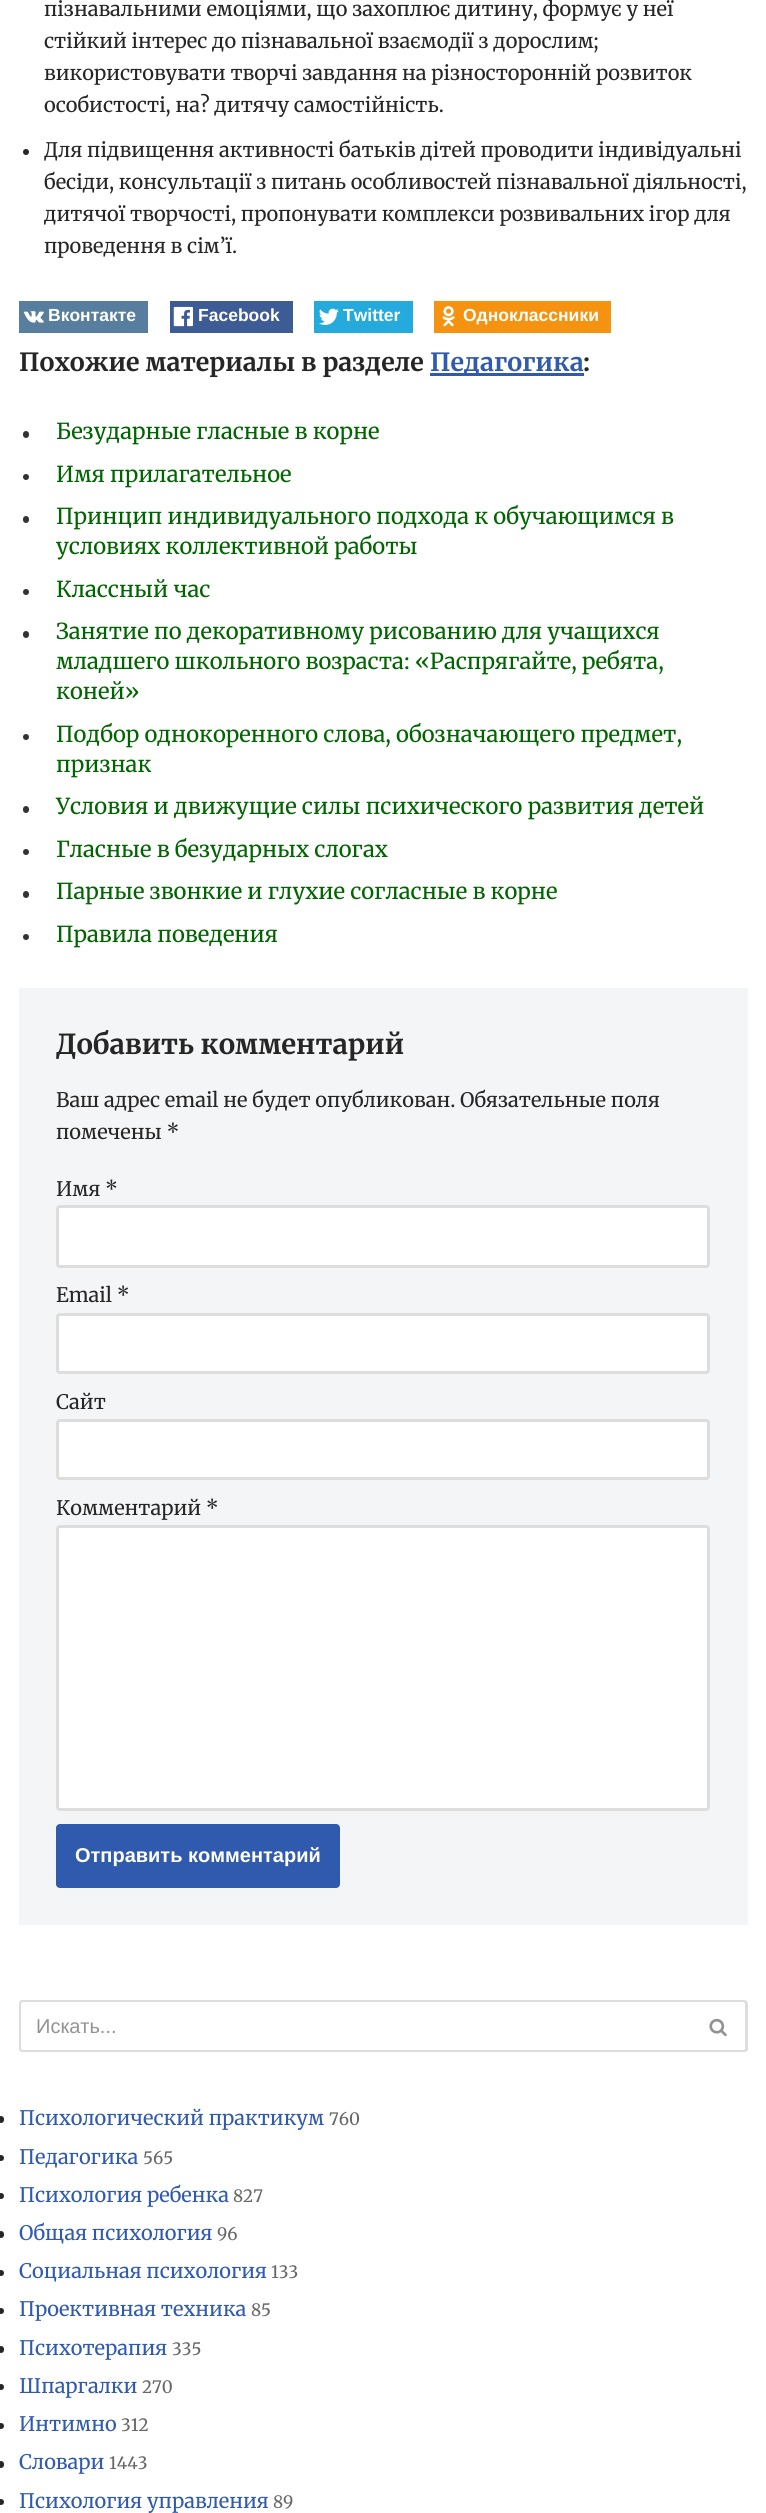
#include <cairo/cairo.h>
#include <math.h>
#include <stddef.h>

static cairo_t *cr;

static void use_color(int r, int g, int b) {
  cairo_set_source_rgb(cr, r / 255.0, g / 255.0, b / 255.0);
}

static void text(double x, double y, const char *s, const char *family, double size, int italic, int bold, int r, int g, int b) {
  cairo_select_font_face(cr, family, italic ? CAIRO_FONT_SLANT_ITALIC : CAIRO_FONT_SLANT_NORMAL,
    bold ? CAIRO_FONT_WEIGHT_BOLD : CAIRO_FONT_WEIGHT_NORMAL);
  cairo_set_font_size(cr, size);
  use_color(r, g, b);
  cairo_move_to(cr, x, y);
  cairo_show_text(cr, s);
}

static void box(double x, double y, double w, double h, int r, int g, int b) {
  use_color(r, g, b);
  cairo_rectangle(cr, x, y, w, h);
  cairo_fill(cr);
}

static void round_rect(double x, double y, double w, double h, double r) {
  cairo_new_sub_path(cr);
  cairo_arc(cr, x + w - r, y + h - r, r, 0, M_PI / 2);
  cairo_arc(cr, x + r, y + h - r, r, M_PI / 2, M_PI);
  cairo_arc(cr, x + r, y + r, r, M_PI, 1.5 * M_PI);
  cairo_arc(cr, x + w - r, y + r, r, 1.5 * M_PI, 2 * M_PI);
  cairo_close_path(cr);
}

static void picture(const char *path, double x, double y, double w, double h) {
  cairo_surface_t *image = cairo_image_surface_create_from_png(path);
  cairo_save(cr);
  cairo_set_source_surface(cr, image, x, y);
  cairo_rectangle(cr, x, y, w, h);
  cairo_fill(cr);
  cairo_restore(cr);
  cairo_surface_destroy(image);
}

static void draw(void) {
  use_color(255, 255, 255);
  cairo_paint(cr);
  use_color(39, 38, 38);
  cairo_arc(cr, 26, 152, 3, 0, 2 * M_PI);
  cairo_fill(cr);
  box(19, 301, 129, 32, 88, 126, 159);
  picture("img_01.png", 23, 311, 21, 12);
  box(170, 301, 123, 32, 61, 91, 149);
  picture("img_02.png", 173, 306, 20, 21);
  box(314, 301, 99, 32, 36, 170, 221);
  picture("img_03.png", 319, 308, 20, 17);
  box(434, 301, 177, 32, 245, 147, 16);
  picture("img_04.png", 442, 306, 13, 21);
  box(430, 373, 154, 3, 47, 90, 174);
  use_color(51, 51, 51);
  round_rect(23, 431, 6, 7, 3);
  cairo_fill(cr);
  cairo_arc(cr, 26, 477, 3, 0, 2 * M_PI);
  cairo_fill(cr);
  round_rect(23, 516, 6, 7, 3);
  cairo_fill(cr);
  cairo_arc(cr, 26, 592, 3, 0, 2 * M_PI);
  cairo_fill(cr);
  round_rect(23, 631, 6, 7, 3);
  cairo_fill(cr);
  cairo_arc(cr, 26, 737, 3, 0, 2 * M_PI);
  cairo_fill(cr);
  round_rect(23, 806, 6, 7, 3);
  cairo_fill(cr);
  cairo_arc(cr, 26, 852, 3, 0, 2 * M_PI);
  cairo_fill(cr);
  round_rect(23, 891, 6, 7, 3);
  cairo_fill(cr);
  cairo_arc(cr, 26, 937, 3, 0, 2 * M_PI);
  cairo_fill(cr);
  box(19, 988, 729, 937, 244, 245, 247);
  use_color(255, 255, 255);
  round_rect(57.5, 1206.5, 651, 60, 2.5);
  cairo_fill_preserve(cr);
  use_color(221, 221, 221);
  cairo_set_line_width(cr, 3);
  cairo_stroke(cr);
  use_color(255, 255, 255);
  round_rect(57.5, 1314.5, 651, 58, 2.5);
  cairo_fill_preserve(cr);
  use_color(221, 221, 221);
  cairo_stroke(cr);
  use_color(255, 255, 255);
  round_rect(57.5, 1420.5, 651, 58, 2.5);
  cairo_fill_preserve(cr);
  use_color(221, 221, 221);
  cairo_stroke(cr);
  use_color(255, 255, 255);
  round_rect(57.5, 1526.5, 651, 283, 2.5);
  cairo_fill_preserve(cr);
  use_color(221, 221, 221);
  cairo_stroke(cr);
  use_color(47, 90, 174);
  round_rect(56, 1824, 284, 64, 4);
  cairo_fill(cr);
  use_color(221, 221, 221);
  cairo_set_fill_rule(cr, CAIRO_FILL_RULE_EVEN_ODD);
  cairo_new_path(cr);
  cairo_move_to(cr, 22, 2000);
  cairo_line_to(cr, 691, 2000);
  cairo_line_to(cr, 691, 2052);
  cairo_line_to(cr, 22, 2052);
  cairo_curve_to(cr, 20, 2052, 19, 2051, 19, 2049);
  cairo_line_to(cr, 19, 2004);
  cairo_curve_to(cr, 19, 2002, 20, 2000, 22, 2000);
  cairo_close_path(cr);
  cairo_move_to(cr, 22, 2002);
  cairo_line_to(cr, 691, 2002);
  cairo_line_to(cr, 691, 2050);
  cairo_line_to(cr, 22, 2050);
  cairo_curve_to(cr, 22, 2050, 21, 2049, 21, 2049);
  cairo_line_to(cr, 21, 2004);
  cairo_curve_to(cr, 21, 2003, 22, 2002, 22, 2002);
  cairo_close_path(cr);
  cairo_fill(cr);
  cairo_new_path(cr);
  cairo_move_to(cr, 691, 2000);
  cairo_line_to(cr, 744, 2000);
  cairo_curve_to(cr, 746, 2000, 748, 2002, 748, 2004);
  cairo_line_to(cr, 748, 2049);
  cairo_curve_to(cr, 748, 2051, 746, 2052, 744, 2052);
  cairo_line_to(cr, 691, 2052);
  cairo_close_path(cr);
  cairo_move_to(cr, 691, 2002);
  cairo_line_to(cr, 744, 2002);
  cairo_curve_to(cr, 744, 2002, 745, 2003, 745, 2004);
  cairo_line_to(cr, 745, 2049);
  cairo_curve_to(cr, 745, 2049, 744, 2050, 744, 2050);
  cairo_line_to(cr, 691, 2050);
  cairo_close_path(cr);
  cairo_fill(cr);
  picture("img_05.png", 709, 2018, 18, 18);
  use_color(39, 38, 38);
  round_rect(-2, 2116, 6, 7, 3);
  cairo_fill(cr);
  cairo_arc(cr, 1, 2158, 3, 0, 2 * M_PI);
  cairo_fill(cr);
  cairo_arc(cr, 1, 2196, 3, 0, 2 * M_PI);
  cairo_fill(cr);
  round_rect(-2, 2231, 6, 7, 3);
  cairo_fill(cr);
  cairo_arc(cr, 1, 2273, 3, 0, 2 * M_PI);
  cairo_fill(cr);
  cairo_arc(cr, 1, 2311, 3, 0, 2 * M_PI);
  cairo_fill(cr);
  round_rect(-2, 2346, 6, 7, 3);
  cairo_fill(cr);
  cairo_arc(cr, 1, 2387, 3, 0, 2 * M_PI);
  cairo_fill(cr);
  cairo_arc(cr, 1, 2426, 3, 0, 2 * M_PI);
  cairo_fill(cr);
  round_rect(-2, 2461, 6, 7, 3);
  cairo_fill(cr);
  cairo_arc(cr, 1, 2502, 3, 0, 2 * M_PI);
  cairo_fill(cr);
  text(44, 16, "пізнавальними емоціями, що захоплює дитину, формує у неї", "Merriweather", 20, 0, 0, 39, 38, 38);
  text(44, 48, "стійкий інтерес до пізнавальної взаємодії з дорослим;", "Merriweather", 20, 0, 0, 39, 38, 38);
  text(44, 80, "використовувати творчі завдання на різносторонній розвиток", "Merriweather", 20, 0, 0, 39, 38, 38);
  text(44, 112, "особистості, на? дитячу самостійність.", "Merriweather", 20, 0, 0, 39, 38, 38);
  text(44, 157, "Для підвищення активності батьків дітей проводити індивідуальні", "Merriweather", 20, 0, 0, 39, 38, 38);
  text(44, 189, "бесіди, консультації з питань особливостей пізнавальної діяльності,", "Merriweather", 20, 0, 0, 39, 38, 38);
  text(44, 221, "дитячої творчості, пропонувати комплекси розвивальних ігор для", "Merriweather", 20, 0, 0, 39, 38, 38);
  text(44, 253, "проведення в сім’ї.", "Merriweather", 20, 0, 0, 39, 38, 38);
  text(48, 321, "Вконтакте", "Liberation Sans", 17.5, 0, 1, 255, 255, 255);
  text(198, 321, "Facebook", "Liberation Sans", 17.5, 0, 1, 255, 255, 255);
  text(343, 321, "Twitter", "Liberation Sans", 17.5, 0, 1, 255, 255, 255);
  text(463, 321, "Одноклассники", "Liberation Sans", 17.5, 0, 1, 255, 255, 255);
  text(19, 371, "Похожие материалы в разделе", "Merriweather", 25, 0, 1, 39, 38, 38);
  text(430, 371, "Педагогика", "Merriweather", 25, 0, 1, 47, 90, 174);
  text(583, 371, ":", "Merriweather", 25, 0, 1, 39, 38, 38);
  text(56, 439, "Безударные гласные в корне", "Merriweather", 22, 0, 0, 0, 100, 0);
  text(56, 482, "Имя прилагательное", "Merriweather", 22, 0, 0, 0, 100, 0);
  text(56, 524, "Принцип индивидуального подхода к обучающимся в", "Merriweather", 22, 0, 0, 0, 100, 0);
  text(56, 554, "условиях коллективной работы", "Merriweather", 22, 0, 0, 0, 100, 0);
  text(56, 597, "Классный час", "Merriweather", 22, 0, 0, 0, 100, 0);
  text(56, 639, "Занятие по декоративному рисованию для учащихся", "Merriweather", 22, 0, 0, 0, 100, 0);
  text(56, 669, "младшего школьного возраста: «Распрягайте, ребята,", "Merriweather", 22, 0, 0, 0, 100, 0);
  text(56, 699, "коней»", "Merriweather", 22, 0, 0, 0, 100, 0);
  text(56, 742, "Подбор однокоренного слова, обозначающего предмет,", "Merriweather", 22, 0, 0, 0, 100, 0);
  text(56, 772, "признак", "Merriweather", 22, 0, 0, 0, 100, 0);
  text(56, 814, "Условия и движущие силы психического развития детей", "Merriweather", 22, 0, 0, 0, 100, 0);
  text(56, 857, "Гласные в безударных слогах", "Merriweather", 22, 0, 0, 0, 100, 0);
  text(56, 899, "Парные звонкие и глухие согласные в корне", "Merriweather", 22, 0, 0, 0, 100, 0);
  text(56, 942, "Правила поведения", "Merriweather", 22, 0, 0, 0, 100, 0);
  text(56, 1054, "Добавить комментарий", "Merriweather", 27.5, 0, 1, 39, 38, 38);
  text(56, 1107, "Ваш адрес email не будет опубликован. Обязательные поля", "Merriweather", 20, 0, 0, 39, 38, 38);
  text(56, 1139, "помечены *", "Merriweather", 20, 0, 0, 39, 38, 38);
  text(56, 1196, "Имя *", "Merriweather", 20, 0, 0, 39, 38, 38);
  text(56, 1302, "Email *", "Merriweather", 20, 0, 0, 39, 38, 38);
  text(56, 1409, "Сайт", "Merriweather", 20, 0, 0, 39, 38, 38);
  text(56, 1515, "Комментарий *", "Merriweather", 20, 0, 0, 39, 38, 38);
  text(75, 1862, "Отправить комментарий", "Liberation Sans", 20, 0, 1, 255, 255, 255);
  text(36, 2033, "Искать...", "Liberation Sans", 20, 0, 0, 147, 147, 147);
  text(19, 2125, "Психологический практикум", "Merriweather", 20, 0, 0, 47, 90, 174);
  text(329, 2125, "760", "Merriweather", 17, 0, 0, 102, 102, 102);
  text(19, 2164, "Педагогика", "Merriweather", 20, 0, 0, 47, 90, 174);
  text(143, 2164, "565", "Merriweather", 17, 0, 0, 102, 102, 102);
  text(19, 2202, "Психология ребенка", "Merriweather", 20, 0, 0, 47, 90, 174);
  text(233, 2202, "827", "Merriweather", 17, 0, 0, 102, 102, 102);
  text(19, 2240, "Общая психология", "Merriweather", 20, 0, 0, 47, 90, 174);
  text(217, 2240, "96", "Merriweather", 17, 0, 0, 102, 102, 102);
  text(19, 2278, "Социальная психология", "Merriweather", 20, 0, 0, 47, 90, 174);
  text(271, 2278, "133", "Merriweather", 17, 0, 0, 102, 102, 102);
  text(19, 2316, "Проективная техника", "Merriweather", 20, 0, 0, 47, 90, 174);
  text(251, 2316, "85", "Merriweather", 17, 0, 0, 102, 102, 102);
  text(19, 2355, "Психотерапия", "Merriweather", 20, 0, 0, 47, 90, 174);
  text(172, 2355, "335", "Merriweather", 17, 0, 0, 102, 102, 102);
  text(19, 2393, "Шпаргалки", "Merriweather", 20, 0, 0, 47, 90, 174);
  text(142, 2393, "270", "Merriweather", 17, 0, 0, 102, 102, 102);
  text(19, 2431, "Интимно", "Merriweather", 20, 0, 0, 47, 90, 174);
  text(121, 2431, "312", "Merriweather", 17, 0, 0, 102, 102, 102);
  text(19, 2469, "Словари", "Merriweather", 20, 0, 0, 47, 90, 174);
  text(109, 2469, "1443", "Merriweather", 17, 0, 0, 102, 102, 102);
  text(19, 2508, "Психология управления", "Merriweather", 20, 0, 0, 47, 90, 174);
  text(273, 2508, "89", "Merriweather", 17, 0, 0, 102, 102, 102);
}

int main(void) {
  cairo_surface_t *surface = cairo_image_surface_create(CAIRO_FORMAT_RGB24, 766, 2513);
  cr = cairo_create(surface);
  cairo_font_options_t *options = cairo_font_options_create();
  cairo_font_options_set_hint_metrics(options, CAIRO_HINT_METRICS_OFF);
  cairo_font_options_set_hint_style(options, CAIRO_HINT_STYLE_NONE);
  cairo_set_font_options(cr, options);
  cairo_set_miter_limit(cr, 4);
  draw();
  cairo_surface_write_to_png(surface, "out.png");
  cairo_font_options_destroy(options);
  cairo_destroy(cr);
  cairo_surface_destroy(surface);
  return 0;
}
